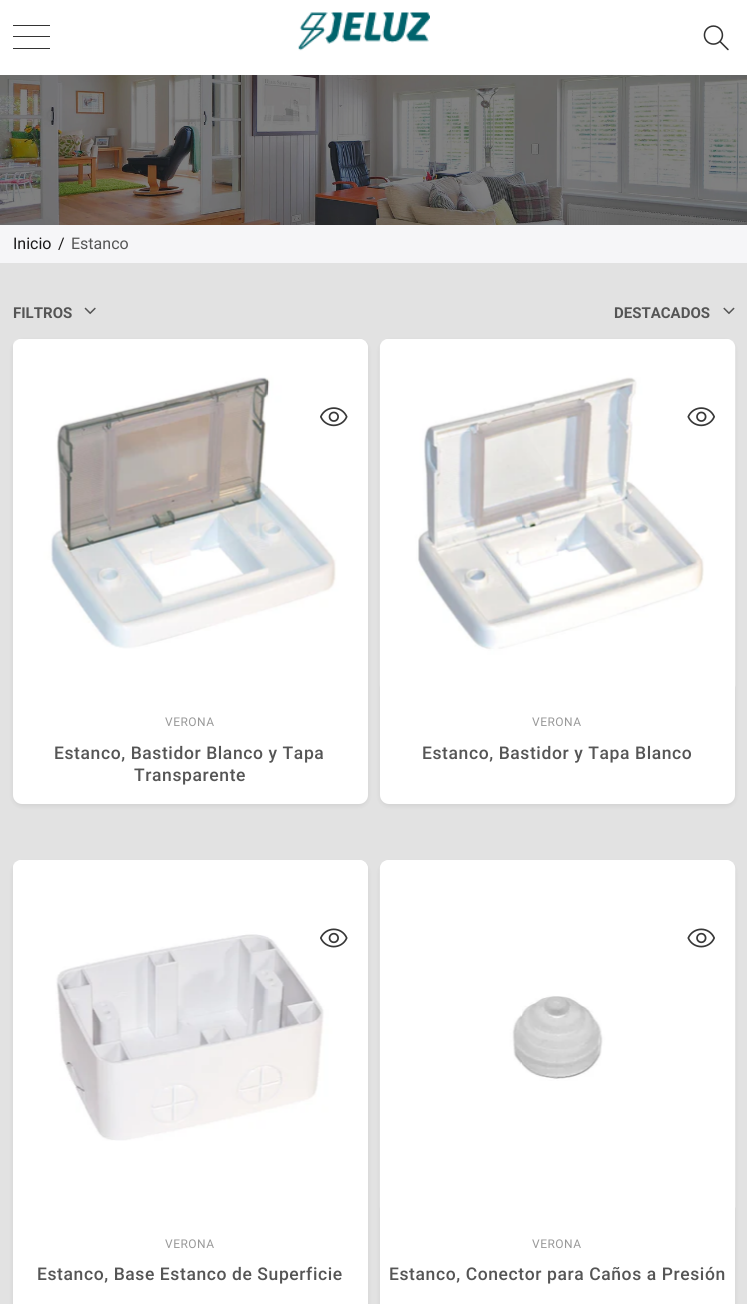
#include <cairo/cairo.h>
#include <math.h>
#include <stddef.h>

static cairo_t *cr;

static void use_color(int r, int g, int b) {
  cairo_set_source_rgb(cr, r / 255.0, g / 255.0, b / 255.0);
}

static void text(double x, double y, const char *s, const char *family, double size, int italic, int bold, int r, int g, int b) {
  cairo_select_font_face(cr, family, italic ? CAIRO_FONT_SLANT_ITALIC : CAIRO_FONT_SLANT_NORMAL,
    bold ? CAIRO_FONT_WEIGHT_BOLD : CAIRO_FONT_WEIGHT_NORMAL);
  cairo_set_font_size(cr, size);
  use_color(r, g, b);
  cairo_move_to(cr, x, y);
  cairo_show_text(cr, s);
}

static void spaced_text(double x, double y, const char *s, double letter, double word) {
  cairo_move_to(cr, x, y);
  while (*s) {
    char ch[5] = {0};
    int n = 0;
    do ch[n++] = *s++; while ((*s & 0xC0) == 0x80);
    cairo_show_text(cr, ch);
    cairo_rel_move_to(cr, letter + word * (*ch == ' '), 0);
  }
}

static void box(double x, double y, double w, double h, int r, int g, int b) {
  use_color(r, g, b);
  cairo_rectangle(cr, x, y, w, h);
  cairo_fill(cr);
}

static void round_rect(double x, double y, double w, double h, double r) {
  cairo_new_sub_path(cr);
  cairo_arc(cr, x + w - r, y + h - r, r, 0, M_PI / 2);
  cairo_arc(cr, x + r, y + h - r, r, M_PI / 2, M_PI);
  cairo_arc(cr, x + r, y + r, r, M_PI, 1.5 * M_PI);
  cairo_arc(cr, x + w - r, y + r, r, 1.5 * M_PI, 2 * M_PI);
  cairo_close_path(cr);
}

static void shadow(double x, double y, double w, double h, double r, double blur, double alpha) {
  cairo_push_group_with_content(cr, CAIRO_CONTENT_ALPHA);
  cairo_set_operator(cr, CAIRO_OPERATOR_SOURCE);
  for (int i = 15; i >= -15 && fmin(w, h) + blur * i / 3 > 0; i -= 2) {
    double e = blur * i / 6;
    cairo_set_source_rgba(cr, 0, 0, 0, alpha * erfc((i - 1) / 8.5) / 2);
    round_rect(x - e, y - e, w + 2 * e, h + 2 * e, fmax(0, fmin(r + e + blur * .6, fmin(w, h) / 2 + e)));
    cairo_fill(cr);
  }
  cairo_pattern_t *soft = cairo_pop_group(cr);
  cairo_mask(cr, soft);
  cairo_pattern_destroy(soft);
}

static void picture(const char *path, double x, double y, double w, double h) {
  cairo_surface_t *image = cairo_image_surface_create_from_png(path);
  cairo_save(cr);
  cairo_set_source_surface(cr, image, x, y);
  cairo_rectangle(cr, x, y, w, h);
  cairo_fill(cr);
  cairo_restore(cr);
  cairo_surface_destroy(image);
}

static void draw(void) {
  use_color(255, 255, 255);
  cairo_paint(cr);
  box(13, 25, 37, 1, 51, 51, 51);
  box(13, 36, 37, 1, 51, 51, 51);
  box(13, 48, 37, 1, 51, 51, 51);
  picture("img_01.png", 298, 12, 132, 39);
  picture("img_02.png", 703, 25, 26, 26);
  box(0, 263, 747, 1041, 226, 226, 226);
  picture("img_03.png", 0, 75, 747, 150);
  box(0, 225, 747, 38, 246, 246, 248);
  picture("img_04.png", 84, 307, 12, 8);
  picture("img_05.png", 723, 307, 12, 8);
  use_color(0, 0, 0);
  shadow(13, 341, 355, 465, 9, 2.5, 0.08);
  use_color(255, 255, 255);
  round_rect(13, 339, 355, 465, 9);
  cairo_fill(cr);
  round_rect(13, 339, 355, 355, 9);
  cairo_fill(cr);
  picture("img_06.png", 13, 339, 353, 310);
  picture("img_07.png", 320, 407, 28, 20);
  use_color(0, 0, 0);
  shadow(380, 341, 355, 465, 9, 2.5, 0.08);
  use_color(255, 255, 255);
  round_rect(380, 339, 355, 465, 9);
  cairo_fill(cr);
  round_rect(380, 339, 355, 355, 9);
  cairo_fill(cr);
  picture("img_08.png", 379, 339, 357, 348);
  picture("img_09.png", 687, 407, 28, 20);
  use_color(0, 0, 0);
  shadow(13, 863, 355, 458, 9, 2.5, 0.08);
  use_color(255, 255, 255);
  round_rect(13, 860, 355, 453, 9);
  cairo_fill(cr);
  round_rect(13, 860, 355, 355, 9);
  cairo_fill(cr);
  picture("img_10.png", 13, 860, 353, 281);
  picture("img_11.png", 320, 928, 28, 20);
  use_color(0, 0, 0);
  shadow(380, 863, 355, 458, 9, 2.5, 0.08);
  use_color(255, 255, 255);
  round_rect(380, 860, 355, 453, 9);
  cairo_fill(cr);
  round_rect(380, 860, 355, 355, 9);
  cairo_fill(cr);
  picture("img_12.png", 379, 861, 357, 347);
  picture("img_13.png", 687, 928, 28, 20);
  text(13, 249, "Inicio", "Roboto", 16, 0, 0, 27, 25, 25);
  text(58, 249, "/", "Roboto", 16, 0, 0, 27, 25, 25);
  text(71, 249, "Estanco", "Roboto", 16, 0, 0, 85, 85, 85);
  text(13, 318, "FILTROS", "Roboto", 15, 0, 1, 85, 85, 85);
  text(614, 318, "DESTACADOS", "Roboto", 15, 0, 1, 85, 85, 85);
  cairo_select_font_face(cr, "Roboto", CAIRO_FONT_SLANT_NORMAL, CAIRO_FONT_WEIGHT_NORMAL);
  cairo_set_font_size(cr, 12);
  use_color(153, 153, 153);
  spaced_text(165, 726, "VERONA", 0.5, 0);
  cairo_select_font_face(cr, "Roboto Medium", CAIRO_FONT_SLANT_NORMAL, CAIRO_FONT_WEIGHT_NORMAL);
  cairo_set_font_size(cr, 17.5);
  use_color(85, 85, 85);
  spaced_text(54, 759, "Estanco, Bastidor Blanco y Tapa", 0.6, 0);
  spaced_text(134, 781, "Transparente", 0.6, 0);
  cairo_select_font_face(cr, "Roboto", CAIRO_FONT_SLANT_NORMAL, CAIRO_FONT_WEIGHT_NORMAL);
  cairo_set_font_size(cr, 12);
  use_color(153, 153, 153);
  spaced_text(532, 726, "VERONA", 0.5, 0);
  cairo_select_font_face(cr, "Roboto Medium", CAIRO_FONT_SLANT_NORMAL, CAIRO_FONT_WEIGHT_NORMAL);
  cairo_set_font_size(cr, 17.5);
  use_color(85, 85, 85);
  spaced_text(422, 759, "Estanco, Bastidor y Tapa Blanco", 0.6, 0);
  cairo_select_font_face(cr, "Roboto", CAIRO_FONT_SLANT_NORMAL, CAIRO_FONT_WEIGHT_NORMAL);
  cairo_set_font_size(cr, 12);
  use_color(153, 153, 153);
  spaced_text(165, 1248, "VERONA", 0.5, 0);
  cairo_select_font_face(cr, "Roboto Medium", CAIRO_FONT_SLANT_NORMAL, CAIRO_FONT_WEIGHT_NORMAL);
  cairo_set_font_size(cr, 17.5);
  use_color(85, 85, 85);
  spaced_text(37, 1280, "Estanco, Base Estanco de Superficie", 0.6, 0);
  cairo_select_font_face(cr, "Roboto", CAIRO_FONT_SLANT_NORMAL, CAIRO_FONT_WEIGHT_NORMAL);
  cairo_set_font_size(cr, 12);
  use_color(153, 153, 153);
  spaced_text(532, 1248, "VERONA", 0.5, 0);
  cairo_select_font_face(cr, "Roboto Medium", CAIRO_FONT_SLANT_NORMAL, CAIRO_FONT_WEIGHT_NORMAL);
  cairo_set_font_size(cr, 17.5);
  use_color(85, 85, 85);
  spaced_text(389, 1280, "Estanco, Conector para Caños a Presión", 0.6, 0);
}

int main(void) {
  cairo_surface_t *surface = cairo_image_surface_create(CAIRO_FORMAT_RGB24, 747, 1304);
  cr = cairo_create(surface);
  cairo_font_options_t *options = cairo_font_options_create();
  cairo_font_options_set_hint_metrics(options, CAIRO_HINT_METRICS_OFF);
  cairo_font_options_set_hint_style(options, CAIRO_HINT_STYLE_NONE);
  cairo_set_font_options(cr, options);
  cairo_set_miter_limit(cr, 4);
  draw();
  cairo_surface_write_to_png(surface, "out.png");
  cairo_font_options_destroy(options);
  cairo_destroy(cr);
  cairo_surface_destroy(surface);
  return 0;
}
